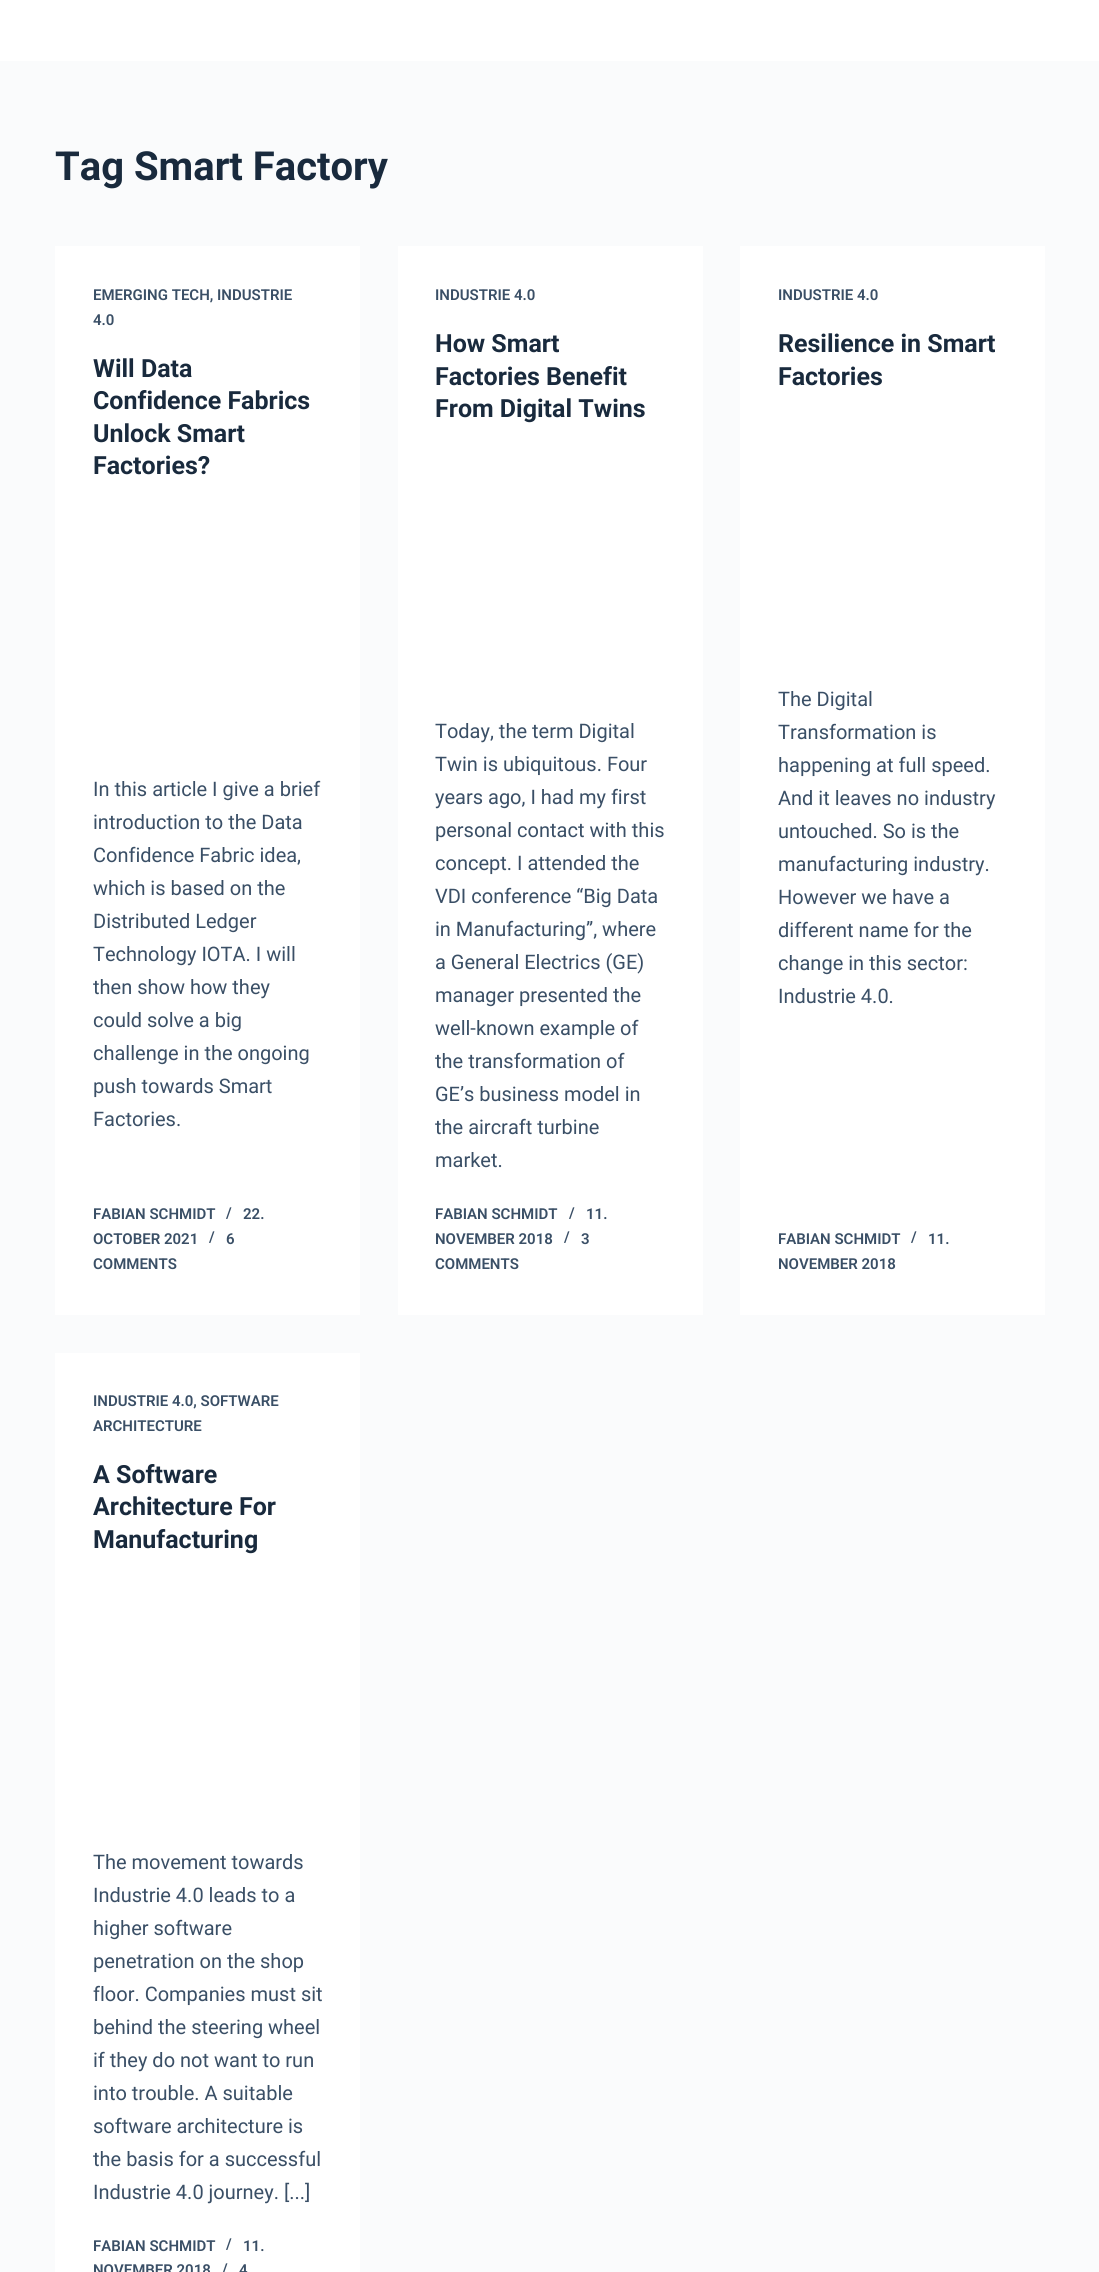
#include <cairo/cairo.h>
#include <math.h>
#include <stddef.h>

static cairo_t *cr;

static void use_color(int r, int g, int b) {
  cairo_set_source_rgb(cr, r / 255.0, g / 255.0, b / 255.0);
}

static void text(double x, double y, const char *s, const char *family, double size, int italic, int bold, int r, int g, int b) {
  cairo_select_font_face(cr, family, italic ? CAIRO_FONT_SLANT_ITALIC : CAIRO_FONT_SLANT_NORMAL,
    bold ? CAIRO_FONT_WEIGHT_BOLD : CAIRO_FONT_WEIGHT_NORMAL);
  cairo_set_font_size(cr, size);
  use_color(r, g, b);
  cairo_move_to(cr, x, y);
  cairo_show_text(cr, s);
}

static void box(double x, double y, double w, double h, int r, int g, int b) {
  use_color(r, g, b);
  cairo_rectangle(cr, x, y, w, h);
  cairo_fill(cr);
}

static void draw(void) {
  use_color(250, 251, 252);
  cairo_paint(cr);
  box(0, 0, 1099, 61, 255, 255, 255);
  box(55, 246, 305, 1069, 255, 255, 255);
  box(398, 246, 305, 1069, 255, 255, 255);
  box(740, 246, 305, 1069, 255, 255, 255);
  box(55, 1353, 305, 919, 255, 255, 255);
  text(55, 180, "Tag Smart Factory", "Roboto", 40, 0, 1, 25, 42, 61);
  text(93, 300, "EMERGING TECH, INDUSTRIE", "Roboto SemiBold", 15, 0, 0, 58, 79, 102);
  text(93, 325, "4.0", "Roboto SemiBold", 15, 0, 0, 58, 79, 102);
  text(93, 377, "Will Data", "Roboto", 25, 0, 1, 25, 42, 61);
  text(93, 409, "Confidence Fabrics", "Roboto", 25, 0, 1, 25, 42, 61);
  text(93, 442, "Unlock Smart", "Roboto", 25, 0, 1, 25, 42, 61);
  text(93, 474, "Factories?", "Roboto", 25, 0, 1, 25, 42, 61);
  text(93, 796, "In this article I give a brief", "Roboto", 20, 0, 0, 58, 79, 102);
  text(93, 829, "introduction to the Data", "Roboto", 20, 0, 0, 58, 79, 102);
  text(93, 862, "Confidence Fabric idea,", "Roboto", 20, 0, 0, 58, 79, 102);
  text(93, 895, "which is based on the", "Roboto", 20, 0, 0, 58, 79, 102);
  text(93, 928, "Distributed Ledger", "Roboto", 20, 0, 0, 58, 79, 102);
  text(93, 961, "Technology IOTA. I will", "Roboto", 20, 0, 0, 58, 79, 102);
  text(93, 994, "then show how they", "Roboto", 20, 0, 0, 58, 79, 102);
  text(93, 1027, "could solve a big", "Roboto", 20, 0, 0, 58, 79, 102);
  text(93, 1060, "challenge in the ongoing", "Roboto", 20, 0, 0, 58, 79, 102);
  text(93, 1093, "push towards Smart", "Roboto", 20, 0, 0, 58, 79, 102);
  text(93, 1126, "Factories.", "Roboto", 20, 0, 0, 58, 79, 102);
  text(93, 1219, "FABIAN SCHMIDT", "Roboto SemiBold", 15, 0, 0, 58, 79, 102);
  text(226, 1218, "/", "Roboto SemiBold", 15, 0, 0, 58, 79, 102);
  text(243, 1219, "22.", "Roboto SemiBold", 15, 0, 0, 58, 79, 102);
  text(93, 1244, "OCTOBER 2021", "Roboto SemiBold", 15, 0, 0, 58, 79, 102);
  text(209, 1242, "/", "Roboto SemiBold", 15, 0, 0, 58, 79, 102);
  text(226, 1244, "6", "Roboto SemiBold", 15, 0, 0, 58, 79, 102);
  text(93, 1269, "COMMENTS", "Roboto SemiBold", 15, 0, 0, 58, 79, 102);
  text(435, 300, "INDUSTRIE 4.0", "Roboto SemiBold", 15, 0, 0, 58, 79, 102);
  text(435, 352, "How Smart", "Roboto", 25, 0, 1, 25, 42, 61);
  text(435, 385, "Factories Benefit", "Roboto", 25, 0, 1, 25, 42, 61);
  text(435, 417, "From Digital Twins", "Roboto", 25, 0, 1, 25, 42, 61);
  text(435, 738, "Today, the term Digital", "Roboto", 20, 0, 0, 58, 79, 102);
  text(435, 771, "Twin is ubiquitous. Four", "Roboto", 20, 0, 0, 58, 79, 102);
  text(435, 804, "years ago, I had my first", "Roboto", 20, 0, 0, 58, 79, 102);
  text(435, 837, "personal contact with this", "Roboto", 20, 0, 0, 58, 79, 102);
  text(435, 870, "concept. I attended the", "Roboto", 20, 0, 0, 58, 79, 102);
  text(435, 903, "VDI conference “Big Data", "Roboto", 20, 0, 0, 58, 79, 102);
  text(435, 936, "in Manufacturing”, where", "Roboto", 20, 0, 0, 58, 79, 102);
  text(435, 969, "a General Electrics (GE)", "Roboto", 20, 0, 0, 58, 79, 102);
  text(435, 1002, "manager presented the", "Roboto", 20, 0, 0, 58, 79, 102);
  text(435, 1035, "well-known example of", "Roboto", 20, 0, 0, 58, 79, 102);
  text(435, 1068, "the transformation of", "Roboto", 20, 0, 0, 58, 79, 102);
  text(435, 1101, "GE’s business model in", "Roboto", 20, 0, 0, 58, 79, 102);
  text(435, 1134, "the aircraft turbine", "Roboto", 20, 0, 0, 58, 79, 102);
  text(435, 1167, "market.", "Roboto", 20, 0, 0, 58, 79, 102);
  text(435, 1219, "FABIAN SCHMIDT", "Roboto SemiBold", 15, 0, 0, 58, 79, 102);
  text(569, 1218, "/", "Roboto SemiBold", 15, 0, 0, 58, 79, 102);
  text(586, 1219, "11.", "Roboto SemiBold", 15, 0, 0, 58, 79, 102);
  text(435, 1244, "NOVEMBER 2018", "Roboto SemiBold", 15, 0, 0, 58, 79, 102);
  text(564, 1242, "/", "Roboto SemiBold", 15, 0, 0, 58, 79, 102);
  text(581, 1244, "3", "Roboto SemiBold", 15, 0, 0, 58, 79, 102);
  text(435, 1269, "COMMENTS", "Roboto SemiBold", 15, 0, 0, 58, 79, 102);
  text(778, 300, "INDUSTRIE 4.0", "Roboto SemiBold", 15, 0, 0, 58, 79, 102);
  text(778, 352, "Resilience in Smart", "Roboto", 25, 0, 1, 25, 42, 61);
  text(778, 385, "Factories", "Roboto", 25, 0, 1, 25, 42, 61);
  text(778, 706, "The Digital", "Roboto", 20, 0, 0, 58, 79, 102);
  text(778, 739, "Transformation is", "Roboto", 20, 0, 0, 58, 79, 102);
  text(778, 772, "happening at full speed.", "Roboto", 20, 0, 0, 58, 79, 102);
  text(778, 805, "And it leaves no industry", "Roboto", 20, 0, 0, 58, 79, 102);
  text(778, 838, "untouched. So is the", "Roboto", 20, 0, 0, 58, 79, 102);
  text(778, 871, "manufacturing industry.", "Roboto", 20, 0, 0, 58, 79, 102);
  text(778, 904, "However we have a", "Roboto", 20, 0, 0, 58, 79, 102);
  text(778, 937, "different name for the", "Roboto", 20, 0, 0, 58, 79, 102);
  text(778, 970, "change in this sector:", "Roboto", 20, 0, 0, 58, 79, 102);
  text(778, 1003, "Industrie 4.0.", "Roboto", 20, 0, 0, 58, 79, 102);
  text(778, 1244, "FABIAN SCHMIDT", "Roboto SemiBold", 15, 0, 0, 58, 79, 102);
  text(911, 1242, "/", "Roboto SemiBold", 15, 0, 0, 58, 79, 102);
  text(928, 1244, "11.", "Roboto SemiBold", 15, 0, 0, 58, 79, 102);
  text(778, 1269, "NOVEMBER 2018", "Roboto SemiBold", 15, 0, 0, 58, 79, 102);
  text(93, 1406, "INDUSTRIE 4.0, SOFTWARE", "Roboto SemiBold", 15, 0, 0, 58, 79, 102);
  text(93, 1431, "ARCHITECTURE", "Roboto SemiBold", 15, 0, 0, 58, 79, 102);
  text(93, 1483, "A Software", "Roboto", 25, 0, 1, 25, 42, 61);
  text(93, 1515, "Architecture For", "Roboto", 25, 0, 1, 25, 42, 61);
  text(93, 1548, "Manufacturing", "Roboto", 25, 0, 1, 25, 42, 61);
  text(93, 1869, "The movement towards", "Roboto", 20, 0, 0, 58, 79, 102);
  text(93, 1902, "Industrie 4.0 leads to a", "Roboto", 20, 0, 0, 58, 79, 102);
  text(93, 1935, "higher software", "Roboto", 20, 0, 0, 58, 79, 102);
  text(93, 1968, "penetration on the shop", "Roboto", 20, 0, 0, 58, 79, 102);
  text(93, 2001, "floor. Companies must sit", "Roboto", 20, 0, 0, 58, 79, 102);
  text(93, 2034, "behind the steering wheel", "Roboto", 20, 0, 0, 58, 79, 102);
  text(93, 2067, "if they do not want to run", "Roboto", 20, 0, 0, 58, 79, 102);
  text(93, 2100, "into trouble. A suitable", "Roboto", 20, 0, 0, 58, 79, 102);
  text(93, 2133, "software architecture is", "Roboto", 20, 0, 0, 58, 79, 102);
  text(93, 2166, "the basis for a successful", "Roboto", 20, 0, 0, 58, 79, 102);
  text(93, 2199, "Industrie 4.0 journey. [...]", "Roboto", 20, 0, 0, 58, 79, 102);
  text(93, 2251, "FABIAN SCHMIDT", "Roboto SemiBold", 15, 0, 0, 58, 79, 102);
  text(226, 2249, "/", "Roboto SemiBold", 15, 0, 0, 58, 79, 102);
  text(243, 2251, "11.", "Roboto SemiBold", 15, 0, 0, 58, 79, 102);
  text(93, 2275, "NOVEMBER 2018", "Roboto SemiBold", 15, 0, 0, 58, 79, 102);
  text(222, 2274, "/", "Roboto SemiBold", 15, 0, 0, 58, 79, 102);
  text(239, 2275, "4", "Roboto SemiBold", 15, 0, 0, 58, 79, 102);
}

int main(void) {
  cairo_surface_t *surface = cairo_image_surface_create(CAIRO_FORMAT_RGB24, 1099, 2272);
  cr = cairo_create(surface);
  cairo_font_options_t *options = cairo_font_options_create();
  cairo_font_options_set_hint_metrics(options, CAIRO_HINT_METRICS_OFF);
  cairo_font_options_set_hint_style(options, CAIRO_HINT_STYLE_NONE);
  cairo_set_font_options(cr, options);
  cairo_set_miter_limit(cr, 4);
  draw();
  cairo_surface_write_to_png(surface, "out.png");
  cairo_font_options_destroy(options);
  cairo_destroy(cr);
  cairo_surface_destroy(surface);
  return 0;
}
